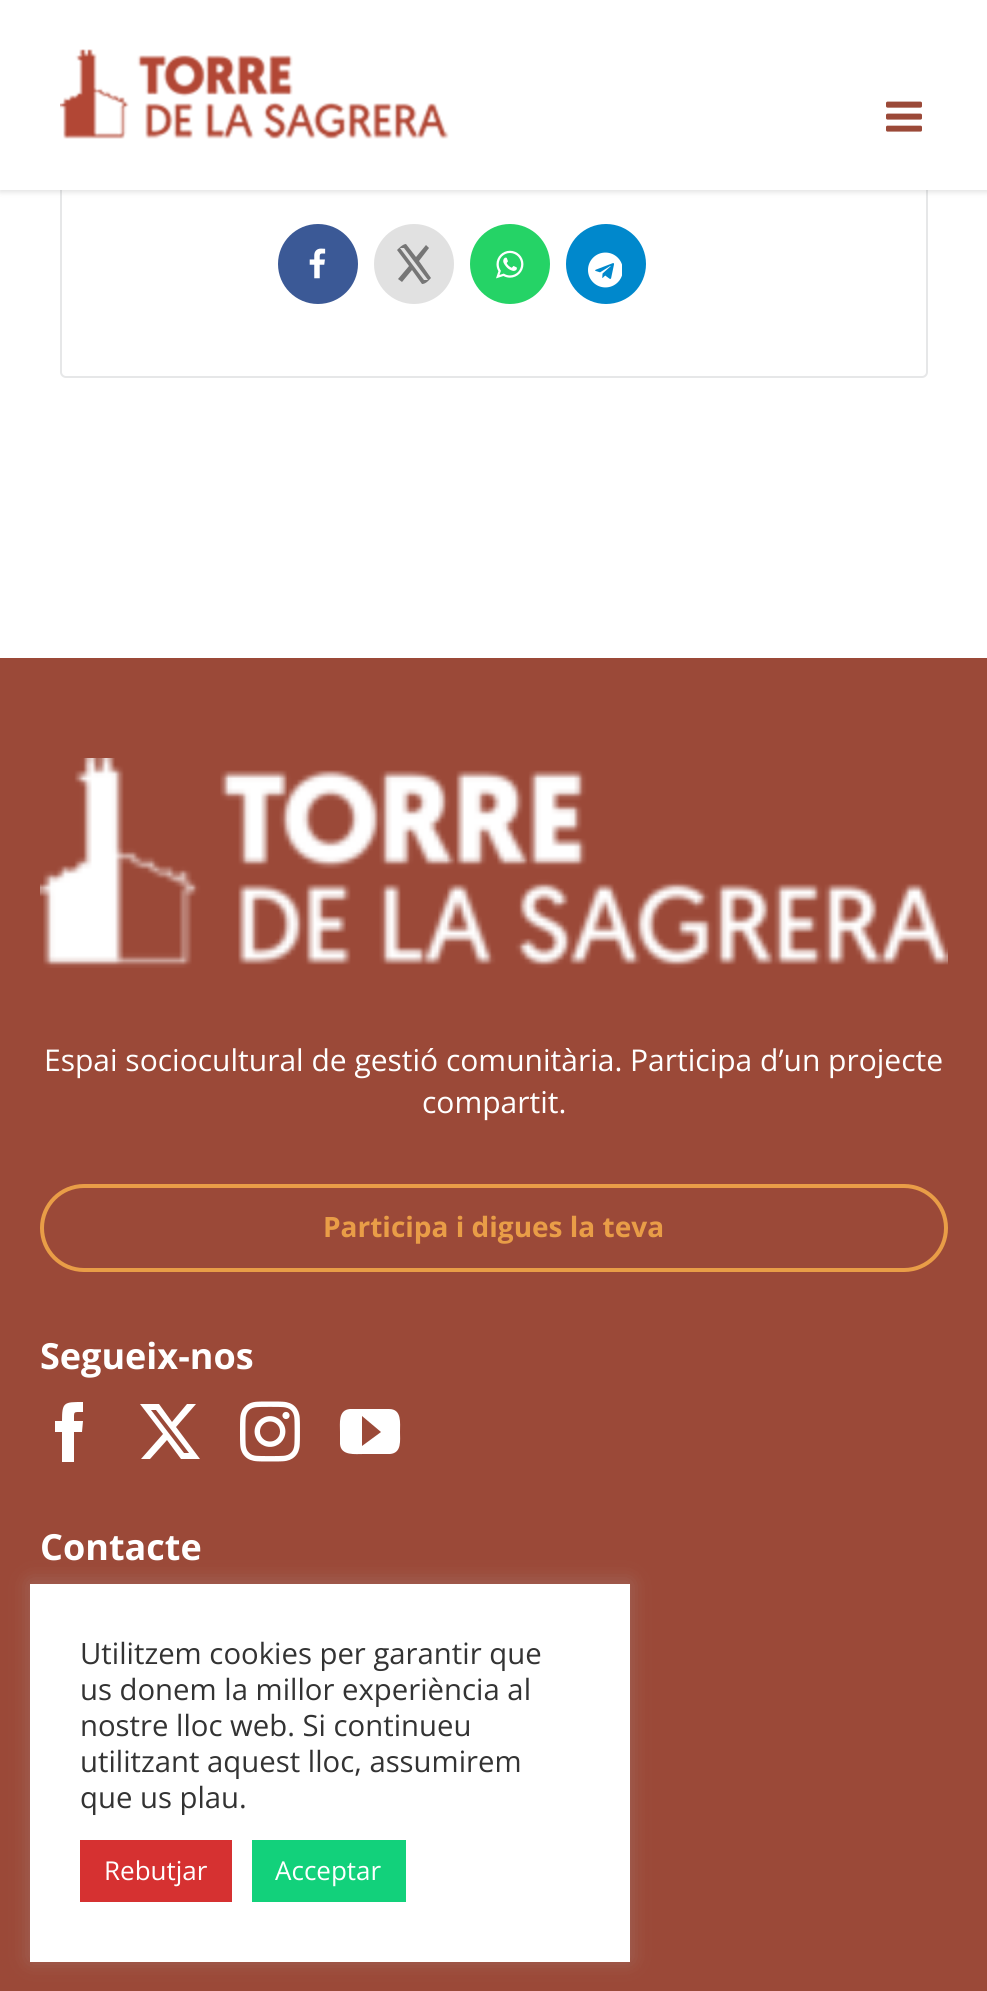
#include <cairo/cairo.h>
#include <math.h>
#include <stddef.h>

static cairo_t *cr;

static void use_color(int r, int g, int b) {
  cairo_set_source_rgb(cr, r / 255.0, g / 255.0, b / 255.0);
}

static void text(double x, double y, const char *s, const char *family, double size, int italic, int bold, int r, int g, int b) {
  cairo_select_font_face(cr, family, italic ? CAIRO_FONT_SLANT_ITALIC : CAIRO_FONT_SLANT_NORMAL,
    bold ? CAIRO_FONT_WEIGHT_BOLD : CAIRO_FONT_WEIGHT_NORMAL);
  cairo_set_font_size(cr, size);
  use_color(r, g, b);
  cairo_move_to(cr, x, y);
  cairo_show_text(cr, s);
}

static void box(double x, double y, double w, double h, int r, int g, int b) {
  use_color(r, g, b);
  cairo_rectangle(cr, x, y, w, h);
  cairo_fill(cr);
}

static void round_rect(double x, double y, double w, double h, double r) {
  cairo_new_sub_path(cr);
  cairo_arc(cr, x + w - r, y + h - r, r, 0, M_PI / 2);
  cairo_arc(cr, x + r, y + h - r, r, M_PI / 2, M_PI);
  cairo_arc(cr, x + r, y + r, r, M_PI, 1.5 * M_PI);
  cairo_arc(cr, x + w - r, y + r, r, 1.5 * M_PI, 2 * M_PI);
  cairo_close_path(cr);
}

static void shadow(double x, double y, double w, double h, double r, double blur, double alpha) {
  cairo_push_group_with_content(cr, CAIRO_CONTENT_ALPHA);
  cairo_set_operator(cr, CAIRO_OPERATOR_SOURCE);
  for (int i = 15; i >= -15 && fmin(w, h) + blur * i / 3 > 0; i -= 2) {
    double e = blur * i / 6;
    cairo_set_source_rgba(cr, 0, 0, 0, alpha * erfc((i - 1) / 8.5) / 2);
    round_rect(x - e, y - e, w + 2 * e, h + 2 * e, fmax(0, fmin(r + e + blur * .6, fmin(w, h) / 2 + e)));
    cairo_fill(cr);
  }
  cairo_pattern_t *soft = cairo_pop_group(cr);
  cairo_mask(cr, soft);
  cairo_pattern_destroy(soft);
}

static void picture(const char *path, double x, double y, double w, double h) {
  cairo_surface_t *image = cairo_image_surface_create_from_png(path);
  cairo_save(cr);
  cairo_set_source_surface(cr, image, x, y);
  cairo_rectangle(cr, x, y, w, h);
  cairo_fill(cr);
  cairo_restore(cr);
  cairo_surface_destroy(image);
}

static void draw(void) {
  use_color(255, 255, 255);
  cairo_paint(cr);
  round_rect(61, 49, 866, 328, 5);
  use_color(230, 231, 232);
  cairo_stroke(cr);
  use_color(0, 0, 0);
  shadow(0, 2, 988, 190, 0, 3, 0.12);
  box(0, 0, 987, 190, 255, 255, 255);
  picture("img_01.png", 60, 49, 389, 90);
  picture("img_02.png", 886, 101, 36, 31);
  use_color(59, 89, 150);
  cairo_arc(cr, 318, 264, 40, 0, 2 * M_PI);
  cairo_fill(cr);
  picture("img_03.png", 309, 248, 17, 31);
  use_color(225, 225, 225);
  cairo_arc(cr, 414, 264, 40, 0, 2 * M_PI);
  cairo_fill(cr);
  use_color(118, 118, 118);
  cairo_set_fill_rule(cr, CAIRO_FILL_RULE_EVEN_ODD);
  cairo_new_path(cr);
  cairo_move_to(cr, 397, 250);
  cairo_curve_to(cr, 399, 248, 403, 244, 406, 244);
  cairo_line_to(cr, 416, 257);
  cairo_line_to(cr, 426, 245);
  cairo_line_to(cr, 429, 248);
  cairo_line_to(cr, 419, 261);
  cairo_line_to(cr, 431, 278);
  cairo_curve_to(cr, 429, 280, 426, 284, 422, 284);
  cairo_line_to(cr, 412, 270);
  cairo_line_to(cr, 402, 282);
  cairo_line_to(cr, 398, 279);
  cairo_line_to(cr, 409, 266);
  cairo_close_path(cr);
  cairo_move_to(cr, 424, 280);
  cairo_line_to(cr, 428, 280);
  cairo_line_to(cr, 404, 248);
  cairo_line_to(cr, 400, 248);
  cairo_close_path(cr);
  cairo_fill(cr);
  use_color(37, 211, 102);
  cairo_arc(cr, 510, 264, 40, 0, 2 * M_PI);
  cairo_fill(cr);
  picture("img_04.png", 496, 250, 28, 29);
  use_color(0, 136, 204);
  cairo_arc(cr, 606, 264, 40, 0, 2 * M_PI);
  cairo_fill(cr);
  picture("img_05.png", 588, 252, 34, 36);
  box(0, 658, 987, 1333, 155, 73, 56);
  picture("img_06.png", 40, 758, 908, 210);
  round_rect(42, 1186, 904, 84, 42);
  use_color(233, 157, 71);
  cairo_set_line_width(cr, 4);
  cairo_stroke(cr);
  use_color(255, 255, 255);
  cairo_set_fill_rule(cr, CAIRO_FILL_RULE_WINDING);
  cairo_new_path(cr);
  cairo_move_to(cr, 74, 1462);
  cairo_line_to(cr, 62, 1462);
  cairo_line_to(cr, 62, 1432);
  cairo_line_to(cr, 55, 1432);
  cairo_line_to(cr, 55, 1421);
  cairo_line_to(cr, 62, 1421);
  cairo_curve_to(cr, 62, 1402, 64, 1402, 83, 1402);
  cairo_line_to(cr, 83, 1412);
  cairo_curve_to(cr, 73, 1412, 74, 1411, 74, 1421);
  cairo_line_to(cr, 83, 1421);
  cairo_line_to(cr, 82, 1432);
  cairo_line_to(cr, 74, 1432);
  cairo_close_path(cr);
  cairo_fill(cr);
  cairo_new_path(cr);
  cairo_move_to(cr, 187, 1404);
  cairo_line_to(cr, 196, 1404);
  cairo_line_to(cr, 176, 1427);
  cairo_line_to(cr, 200, 1459);
  cairo_line_to(cr, 181, 1459);
  cairo_line_to(cr, 167, 1440);
  cairo_line_to(cr, 150, 1459);
  cairo_line_to(cr, 141, 1459);
  cairo_line_to(cr, 163, 1434);
  cairo_line_to(cr, 140, 1404);
  cairo_line_to(cr, 159, 1404);
  cairo_line_to(cr, 172, 1422);
  cairo_close_path(cr);
  cairo_move_to(cr, 184, 1453);
  cairo_line_to(cr, 189, 1453);
  cairo_line_to(cr, 156, 1410);
  cairo_line_to(cr, 151, 1410);
  cairo_close_path(cr);
  cairo_fill(cr);
  picture("img_07.png", 240, 1401, 60, 61);
  cairo_new_path(cr);
  cairo_move_to(cr, 389, 1409);
  cairo_line_to(cr, 350, 1409);
  cairo_curve_to(cr, 338, 1410, 340, 1423, 340, 1432);
  cairo_line_to(cr, 340, 1444);
  cairo_curve_to(cr, 341, 1456, 355, 1454, 364, 1454);
  cairo_line_to(cr, 390, 1454);
  cairo_curve_to(cr, 402, 1453, 400, 1440, 400, 1432);
  cairo_curve_to(cr, 400, 1423, 402, 1409, 389, 1409);
  cairo_close_path(cr);
  cairo_move_to(cr, 362, 1446);
  cairo_line_to(cr, 362, 1416);
  cairo_line_to(cr, 381, 1432);
  cairo_close_path(cr);
  cairo_fill(cr);
  use_color(172, 171, 171);
  shadow(30, 1582, 600, 378, 0, 10, 0.3);
  box(30, 1584, 600, 378, 255, 255, 255);
  box(80, 1840, 152, 62, 214, 49, 49);
  box(252, 1840, 154, 62, 18, 209, 123);
  text(44, 1071, "Espai sociocultural de gestió comunitària. Participa d’un projecte", "Open Sans", 30, 0, 0, 255, 255, 255);
  text(422, 1113, "compartit.", "Open Sans", 30, 0, 0, 255, 255, 255);
  text(323, 1237, "Participa i digues la teva", "Open Sans", 28, 0, 1, 233, 157, 71);
  text(40, 1369, "Segueix-nos", "Open Sans", 36, 0, 1, 255, 255, 255);
  text(40, 1560, "Contacte", "Open Sans", 36, 0, 1, 255, 255, 255);
  text(80, 1664, "Utilitzem cookies per garantir que", "Open Sans", 29.3, 0, 0, 51, 51, 51);
  text(80, 1700, "us donem la millor experiència al", "Open Sans", 29.3, 0, 0, 51, 51, 51);
  text(80, 1736, "nostre lloc web. Si continueu", "Open Sans", 29.3, 0, 0, 51, 51, 51);
  text(80, 1772, "utilitzant aquest lloc, assumirem", "Open Sans", 29.3, 0, 0, 51, 51, 51);
  text(80, 1808, "que us plau.", "Open Sans", 29.3, 0, 0, 51, 51, 51);
  text(104, 1880, "Rebutjar", "Open Sans", 26, 0, 0, 255, 255, 255);
  text(275, 1880, "Acceptar", "Open Sans", 26, 0, 0, 255, 255, 255);
}

int main(void) {
  cairo_surface_t *surface = cairo_image_surface_create(CAIRO_FORMAT_RGB24, 987, 1991);
  cr = cairo_create(surface);
  cairo_font_options_t *options = cairo_font_options_create();
  cairo_font_options_set_hint_metrics(options, CAIRO_HINT_METRICS_OFF);
  cairo_font_options_set_hint_style(options, CAIRO_HINT_STYLE_NONE);
  cairo_set_font_options(cr, options);
  cairo_set_miter_limit(cr, 4);
  draw();
  cairo_surface_write_to_png(surface, "out.png");
  cairo_font_options_destroy(options);
  cairo_destroy(cr);
  cairo_surface_destroy(surface);
  return 0;
}
